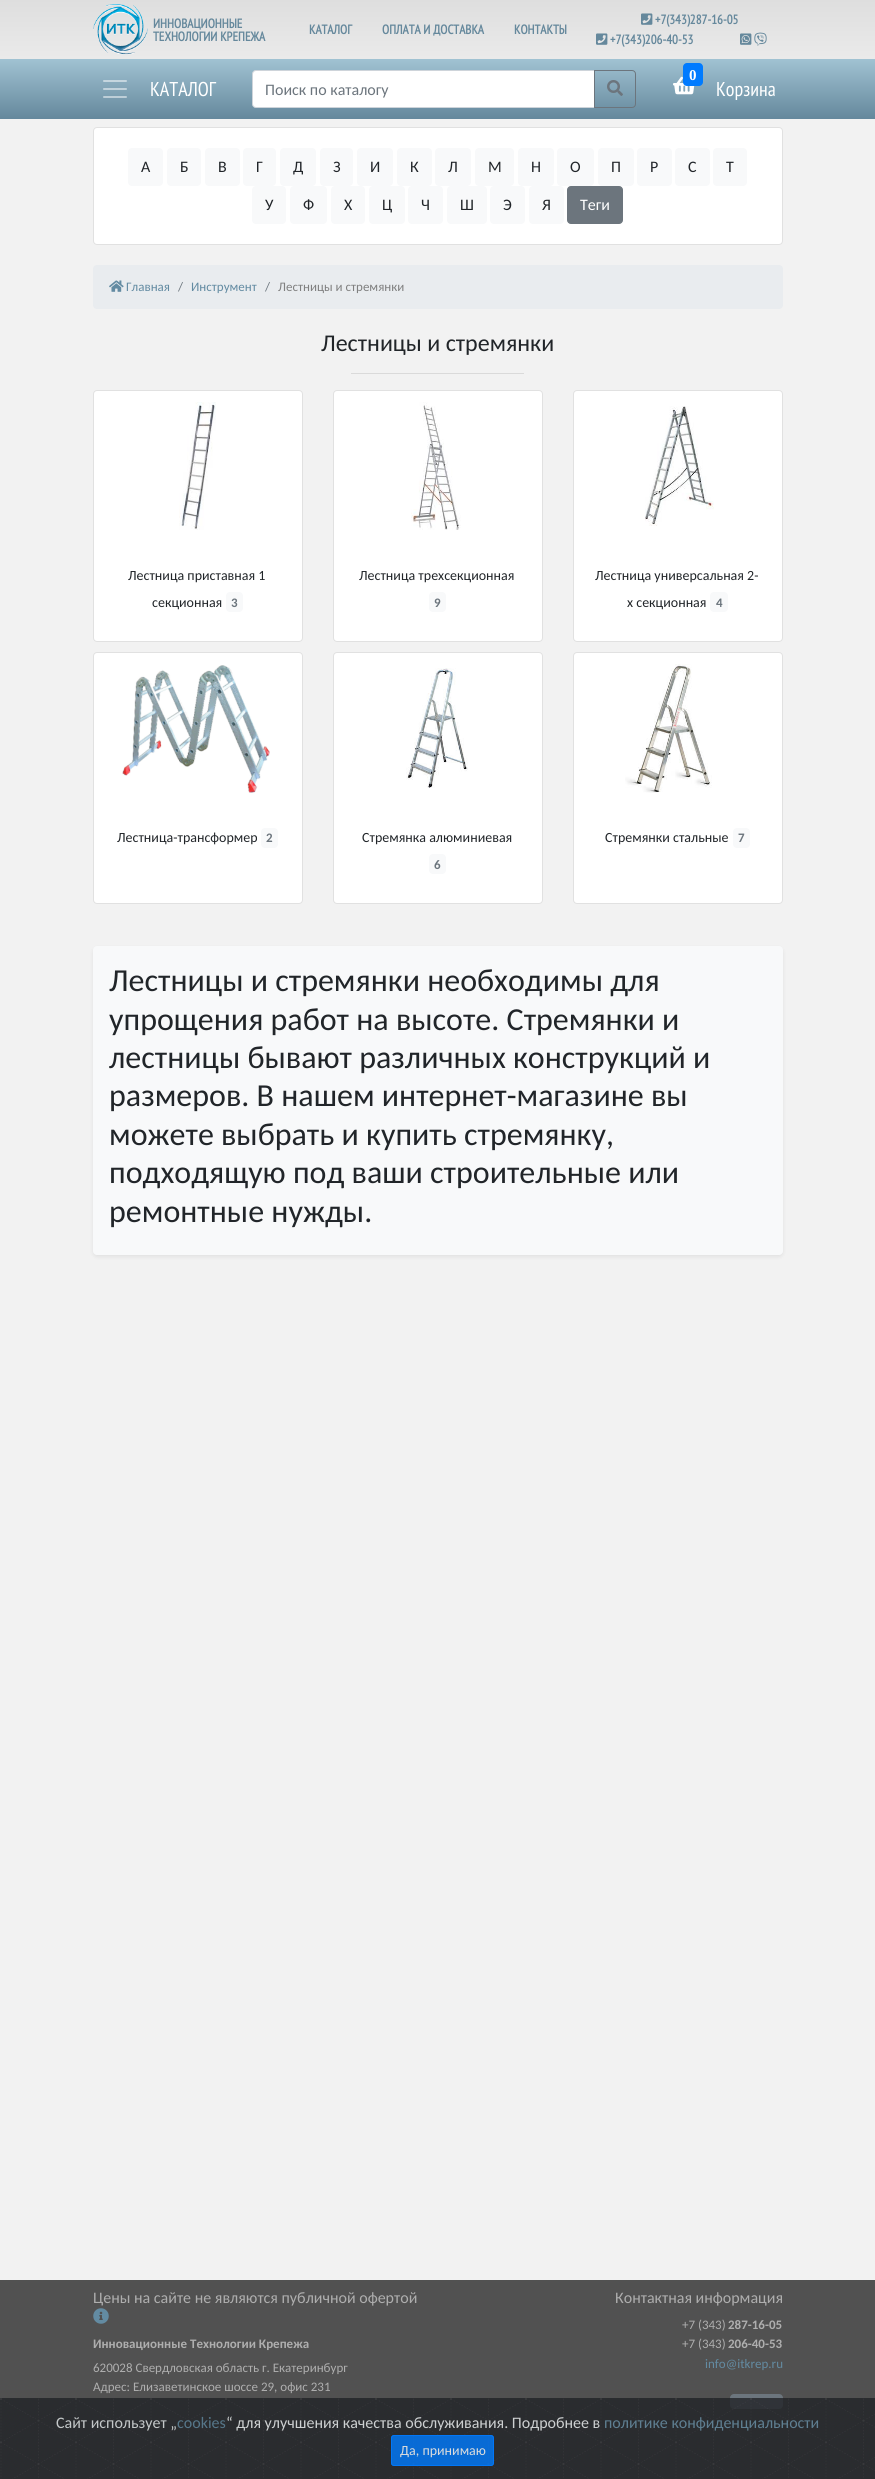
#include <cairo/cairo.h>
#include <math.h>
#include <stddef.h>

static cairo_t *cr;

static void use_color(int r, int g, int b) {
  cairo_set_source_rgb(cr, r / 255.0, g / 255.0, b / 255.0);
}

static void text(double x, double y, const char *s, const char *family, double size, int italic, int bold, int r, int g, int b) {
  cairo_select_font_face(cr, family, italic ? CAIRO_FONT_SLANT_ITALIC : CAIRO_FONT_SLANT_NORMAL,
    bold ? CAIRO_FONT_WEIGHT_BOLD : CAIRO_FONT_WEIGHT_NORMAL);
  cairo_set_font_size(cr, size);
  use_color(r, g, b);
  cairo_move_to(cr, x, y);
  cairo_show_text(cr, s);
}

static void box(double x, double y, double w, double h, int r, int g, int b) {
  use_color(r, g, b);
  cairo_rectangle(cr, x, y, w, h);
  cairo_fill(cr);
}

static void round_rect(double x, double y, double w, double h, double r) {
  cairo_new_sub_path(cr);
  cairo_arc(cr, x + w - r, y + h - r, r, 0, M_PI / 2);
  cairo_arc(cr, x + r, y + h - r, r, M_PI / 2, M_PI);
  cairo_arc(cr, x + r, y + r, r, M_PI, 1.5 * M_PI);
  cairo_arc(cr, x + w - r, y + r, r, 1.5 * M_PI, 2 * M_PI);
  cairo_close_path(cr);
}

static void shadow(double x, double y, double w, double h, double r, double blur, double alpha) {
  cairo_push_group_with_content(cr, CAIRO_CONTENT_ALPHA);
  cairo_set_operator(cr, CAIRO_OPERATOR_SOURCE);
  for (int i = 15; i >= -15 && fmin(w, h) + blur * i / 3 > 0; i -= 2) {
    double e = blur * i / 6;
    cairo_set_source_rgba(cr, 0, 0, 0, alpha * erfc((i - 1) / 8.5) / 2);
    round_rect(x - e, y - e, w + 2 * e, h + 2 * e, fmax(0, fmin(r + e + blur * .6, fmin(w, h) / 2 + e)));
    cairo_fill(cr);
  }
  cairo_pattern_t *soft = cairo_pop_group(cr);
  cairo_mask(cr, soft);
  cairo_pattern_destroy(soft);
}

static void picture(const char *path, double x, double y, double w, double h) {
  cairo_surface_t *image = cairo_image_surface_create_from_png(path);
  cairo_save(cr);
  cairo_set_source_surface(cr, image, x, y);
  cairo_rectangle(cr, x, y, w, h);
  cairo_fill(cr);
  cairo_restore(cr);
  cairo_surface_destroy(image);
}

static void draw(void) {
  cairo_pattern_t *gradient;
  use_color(242, 242, 242);
  cairo_paint(cr);
  gradient = cairo_pattern_create_linear(438, 0, 438, 59);
  cairo_pattern_add_color_stop_rgba(gradient, 0, 0.871, 0.871, 0.871, 1);
  cairo_pattern_add_color_stop_rgba(gradient, 1, 0.918, 0.918, 0.918, 1);
  cairo_set_source(cr, gradient);
  cairo_pattern_destroy(gradient);
  cairo_rectangle(cr, 0, 0, 875, 59);
  cairo_fill(cr);
  picture("img_01.png", 93, 4, 55, 51);
  picture("img_02.png", 641, 13, 12, 12);
  picture("img_03.png", 596, 33, 12, 12);
  picture("img_04.png", 740, 33, 12, 12);
  picture("img_05.png", 754, 32, 13, 14);
  gradient = cairo_pattern_create_linear(438, 59, 438, 119);
  cairo_pattern_add_color_stop_rgba(gradient, 0, 0.631, 0.761, 0.824, 1);
  cairo_pattern_add_color_stop_rgba(gradient, 1, 0.396, 0.533, 0.612, 1);
  cairo_set_source(cr, gradient);
  cairo_pattern_destroy(gradient);
  cairo_rectangle(cr, 0, 59, 875, 60);
  cairo_fill(cr);
  picture("img_06.png", 103, 80, 24, 18);
  use_color(255, 255, 255);
  cairo_new_path(cr);
  cairo_move_to(cr, 256, 70.5);
  cairo_line_to(cr, 594.5, 70.5);
  cairo_line_to(cr, 594.5, 107.5);
  cairo_line_to(cr, 256, 107.5);
  cairo_curve_to(cr, 254, 107.5, 252.5, 106, 252.5, 104);
  cairo_line_to(cr, 252.5, 74);
  cairo_curve_to(cr, 252.5, 72, 254, 70.5, 256, 70.5);
  cairo_close_path(cr);
  cairo_fill_preserve(cr);
  use_color(206, 212, 218);
  cairo_set_line_width(cr, 1);
  cairo_stroke(cr);
  cairo_new_path(cr);
  cairo_move_to(cr, 594.5, 70.5);
  cairo_line_to(cr, 632, 70.5);
  cairo_curve_to(cr, 634, 70.5, 635.5, 72, 635.5, 74);
  cairo_line_to(cr, 635.5, 104);
  cairo_curve_to(cr, 635.5, 106, 634, 107.5, 632, 107.5);
  cairo_line_to(cr, 594.5, 107.5);
  cairo_close_path(cr);
  use_color(108, 117, 125);
  cairo_stroke(cr);
  picture("img_07.png", 607, 80, 16, 16);
  picture("img_08.png", 673, 76, 22, 19);
  use_color(0, 123, 255);
  round_rect(683, 63, 20, 23, 4);
  cairo_fill(cr);
  use_color(255, 255, 255);
  round_rect(93, 127, 690, 118, 4);
  cairo_fill(cr);
  round_rect(93.5, 127.5, 689, 117, 3.5);
  cairo_set_source_rgba(cr, 0, 0, 0, 0.12);
  cairo_stroke(cr);
  use_color(248, 249, 250);
  round_rect(128, 148, 35, 38, 4);
  cairo_fill(cr);
  round_rect(167, 148, 34, 38, 4);
  cairo_fill(cr);
  round_rect(205, 148, 35, 38, 4);
  cairo_fill(cr);
  round_rect(243, 148, 33, 38, 4);
  cairo_fill(cr);
  round_rect(280, 148, 36, 38, 4);
  cairo_fill(cr);
  round_rect(320, 148, 33, 38, 4);
  cairo_fill(cr);
  round_rect(357, 148, 36, 38, 4);
  cairo_fill(cr);
  round_rect(397, 148, 35, 38, 4);
  cairo_fill(cr);
  round_rect(435, 148, 36, 38, 4);
  cairo_fill(cr);
  round_rect(475, 148, 39, 38, 4);
  cairo_fill(cr);
  round_rect(518, 148, 36, 38, 4);
  cairo_fill(cr);
  round_rect(557, 148, 37, 38, 4);
  cairo_fill(cr);
  round_rect(598, 148, 36, 38, 4);
  cairo_fill(cr);
  round_rect(637, 148, 35, 38, 4);
  cairo_fill(cr);
  round_rect(675, 148, 35, 38, 4);
  cairo_fill(cr);
  round_rect(713, 148, 34, 38, 4);
  cairo_fill(cr);
  round_rect(252, 186, 34, 38, 4);
  cairo_fill(cr);
  round_rect(290, 186, 37, 38, 4);
  cairo_fill(cr);
  round_rect(331, 186, 34, 38, 4);
  cairo_fill(cr);
  round_rect(369, 186, 36, 38, 4);
  cairo_fill(cr);
  round_rect(408, 186, 35, 38, 4);
  cairo_fill(cr);
  round_rect(447, 186, 40, 38, 4);
  cairo_fill(cr);
  round_rect(490, 186, 35, 38, 4);
  cairo_fill(cr);
  round_rect(529, 186, 35, 38, 4);
  cairo_fill(cr);
  use_color(108, 117, 125);
  round_rect(567.5, 186.5, 55, 37, 3.5);
  cairo_fill_preserve(cr);
  cairo_stroke(cr);
  use_color(233, 236, 239);
  round_rect(93, 265, 690, 44, 4);
  cairo_fill(cr);
  picture("img_09.png", 109, 280, 15, 12);
  box(351, 373, 173, 1, 218, 218, 218);
  use_color(255, 255, 255);
  round_rect(93, 390, 210, 252, 4);
  cairo_fill(cr);
  round_rect(93.5, 390.5, 209, 251, 3.5);
  cairo_set_source_rgba(cr, 0, 0, 0, 0.12);
  cairo_stroke(cr);
  picture("img_10.png", 179, 402, 37, 128);
  use_color(248, 249, 250);
  round_rect(226, 592, 17, 20, 4);
  cairo_fill(cr);
  use_color(255, 255, 255);
  round_rect(333, 390, 210, 252, 4);
  cairo_fill(cr);
  round_rect(333.5, 390.5, 209, 251, 3.5);
  cairo_set_source_rgba(cr, 0, 0, 0, 0.12);
  cairo_stroke(cr);
  picture("img_11.png", 411, 402, 50, 128);
  use_color(248, 249, 250);
  round_rect(429, 592, 17, 20, 4);
  cairo_fill(cr);
  use_color(255, 255, 255);
  round_rect(573, 390, 210, 252, 4);
  cairo_fill(cr);
  round_rect(573.5, 390.5, 209, 251, 3.5);
  cairo_set_source_rgba(cr, 0, 0, 0, 0.12);
  cairo_stroke(cr);
  picture("img_12.png", 645, 406, 69, 120);
  use_color(248, 249, 250);
  round_rect(710, 592, 18, 20, 4);
  cairo_fill(cr);
  use_color(255, 255, 255);
  round_rect(93, 652, 210, 252, 4);
  cairo_fill(cr);
  round_rect(93.5, 652.5, 209, 251, 3.5);
  cairo_set_source_rgba(cr, 0, 0, 0, 0.12);
  cairo_stroke(cr);
  picture("img_13.png", 122, 665, 148, 128);
  use_color(248, 249, 250);
  round_rect(261, 828, 17, 20, 4);
  cairo_fill(cr);
  use_color(255, 255, 255);
  round_rect(333, 652, 210, 252, 4);
  cairo_fill(cr);
  round_rect(333.5, 652.5, 209, 251, 3.5);
  cairo_set_source_rgba(cr, 0, 0, 0, 0.12);
  cairo_stroke(cr);
  picture("img_14.png", 406, 668, 62, 120);
  use_color(248, 249, 250);
  round_rect(429, 854, 17, 20, 4);
  cairo_fill(cr);
  use_color(255, 255, 255);
  round_rect(573, 652, 210, 252, 4);
  cairo_fill(cr);
  round_rect(573.5, 652.5, 209, 251, 3.5);
  cairo_set_source_rgba(cr, 0, 0, 0, 0.12);
  cairo_stroke(cr);
  picture("img_15.png", 625, 664, 87, 129);
  use_color(248, 249, 250);
  round_rect(733, 828, 17, 20, 4);
  cairo_fill(cr);
  use_color(0, 0, 0);
  shadow(93, 948, 690, 309, 4, 2, 0.07);
  use_color(248, 249, 250);
  round_rect(93, 946, 690, 309, 4);
  cairo_fill(cr);
  box(0, 2280, 875, 199, 81, 81, 81);
  picture("img_16.png", 93, 2308, 16, 16);
  use_color(108, 117, 125);
  round_rect(730, 2394, 53, 15, 4);
  cairo_fill(cr);
  picture("img_17.png", 0, 2398, 875, 81);
  cairo_set_source_rgba(cr, 0, 0.482, 1, 0.8);
  round_rect(391, 2435, 103, 31, 3);
  cairo_fill(cr);
  round_rect(391.5, 2435.5, 102, 30, 2.5);
  cairo_stroke(cr);
  text(153, 28, "ИННОВАЦИОННЫЕ", "PT Sans Narrow", 13, 0, 1, 101, 136, 156);
  text(153, 41, "ТЕХНОЛОГИИ КРЕПЕЖА", "PT Sans Narrow", 13, 0, 1, 101, 136, 156);
  text(309, 34, "КАТАЛОГ", "PT Sans Narrow", 13, 0, 1, 101, 136, 156);
  text(382, 34, "ОПЛАТА И ДОСТАВКА", "PT Sans Narrow", 13, 0, 1, 101, 136, 156);
  text(514, 34, "КОНТАКТЫ", "PT Sans Narrow", 13, 0, 1, 101, 136, 156);
  text(655, 24, "+7(343)287-16-05", "PT Sans Narrow", 13, 0, 1, 101, 136, 156);
  text(610, 44, "+7(343)206-40-53", "PT Sans Narrow", 13, 0, 1, 101, 136, 156);
  text(150, 96, "КАТАЛОГ", "PT Sans Narrow", 20, 0, 0, 255, 255, 255);
  text(265, 95, "Поиск по каталогу", "Carlito", 16, 0, 0, 108, 117, 125);
  text(689, 80, "0", "Liberation Serif", 15, 0, 1, 255, 255, 255);
  text(716, 96, "Корзина", "PT Sans Narrow", 20, 0, 0, 255, 255, 255);
  text(141, 172, "А", "Carlito", 16, 0, 0, 33, 37, 41);
  text(180, 172, "Б", "Carlito", 16, 0, 0, 33, 37, 41);
  text(218, 172, "В", "Carlito", 16, 0, 0, 33, 37, 41);
  text(256, 172, "Г", "Carlito", 16, 0, 0, 33, 37, 41);
  text(293, 172, "Д", "Carlito", 16, 0, 0, 33, 37, 41);
  text(333, 172, "З", "Carlito", 16, 0, 0, 33, 37, 41);
  text(370, 172, "И", "Carlito", 16, 0, 0, 33, 37, 41);
  text(410, 172, "К", "Carlito", 16, 0, 0, 33, 37, 41);
  text(448, 172, "Л", "Carlito", 16, 0, 0, 33, 37, 41);
  text(488, 172, "М", "Carlito", 16, 0, 0, 33, 37, 41);
  text(531, 172, "Н", "Carlito", 16, 0, 0, 33, 37, 41);
  text(570, 172, "О", "Carlito", 16, 0, 0, 33, 37, 41);
  text(611, 172, "П", "Carlito", 16, 0, 0, 33, 37, 41);
  text(650, 172, "Р", "Carlito", 16, 0, 0, 33, 37, 41);
  text(688, 172, "С", "Carlito", 16, 0, 0, 33, 37, 41);
  text(726, 172, "Т", "Carlito", 16, 0, 0, 33, 37, 41);
  text(265, 210, "У", "Carlito", 16, 0, 0, 33, 37, 41);
  text(303, 210, "Ф", "Carlito", 16, 0, 0, 33, 37, 41);
  text(344, 210, "Х", "Carlito", 16, 0, 0, 33, 37, 41);
  text(382, 210, "Ц", "Carlito", 16, 0, 0, 33, 37, 41);
  text(421, 210, "Ч", "Carlito", 16, 0, 0, 33, 37, 41);
  text(460, 210, "Ш", "Carlito", 16, 0, 0, 33, 37, 41);
  text(503, 210, "Э", "Carlito", 16, 0, 0, 33, 37, 41);
  text(542, 210, "Я", "Carlito", 16, 0, 0, 33, 37, 41);
  text(580, 210, "Теги", "Carlito", 16, 0, 0, 255, 255, 255);
  text(126, 291, "Главная", "Carlito", 13, 0, 0, 99, 139, 162);
  text(178, 291, "/", "Carlito", 13, 0, 0, 108, 117, 125);
  text(191, 291, "Инструмент", "Carlito", 13, 0, 0, 99, 139, 162);
  text(265, 291, "/", "Carlito", 13, 0, 0, 108, 117, 125);
  text(278, 291, "Лестницы и стремянки", "Carlito", 13, 0, 0, 128, 128, 128);
  text(321, 351, "Лестницы и стремянки", "Carlito", 24, 0, 0, 33, 37, 41);
  text(128, 580, "Лестница приставная 1", "Carlito", 14, 0, 0, 33, 37, 41);
  text(152, 607, "секционная", "Carlito", 14, 0, 0, 33, 37, 41);
  text(231, 607, "3", "Carlito", 13, 0, 1, 108, 117, 125);
  text(359, 580, "Лестница трехсекционная", "Carlito", 14, 0, 0, 33, 37, 41);
  text(434, 607, "9", "Carlito", 13, 0, 1, 108, 117, 125);
  text(595, 580, "Лестница универсальная 2-", "Carlito", 14, 0, 0, 33, 37, 41);
  text(627, 607, "х секционная", "Carlito", 14, 0, 0, 33, 37, 41);
  text(716, 607, "4", "Carlito", 13, 0, 1, 108, 117, 125);
  text(117, 842, "Лестница-трансформер", "Carlito", 14, 0, 0, 33, 37, 41);
  text(266, 842, "2", "Carlito", 13, 0, 1, 108, 117, 125);
  text(362, 842, "Стремянка алюминиевая", "Carlito", 14, 0, 0, 33, 37, 41);
  text(434, 869, "6", "Carlito", 13, 0, 1, 108, 117, 125);
  text(605, 842, "Стремянки стальные", "Carlito", 14, 0, 0, 33, 37, 41);
  text(738, 842, "7", "Carlito", 13, 0, 1, 108, 117, 125);
  text(109, 991, "Лестницы и стремянки необходимы для", "Carlito", 32, 0, 0, 33, 37, 41);
  text(109, 1030, "упрощения работ на высоте. Стремянки и", "Carlito", 32, 0, 0, 33, 37, 41);
  text(109, 1068, "лестницы бывают различных конструкций и", "Carlito", 32, 0, 0, 33, 37, 41);
  text(109, 1106, "размеров. В нашем интернет-магазине вы", "Carlito", 32, 0, 0, 33, 37, 41);
  text(109, 1145, "можете выбрать и купить стремянку,", "Carlito", 32, 0, 0, 33, 37, 41);
  text(109, 1183, "подходящую под ваши строительные или", "Carlito", 32, 0, 0, 33, 37, 41);
  text(109, 1222, "ремонтные нужды.", "Carlito", 32, 0, 0, 33, 37, 41);
  text(93, 2303, "Цены на сайте не являются публичной офертой", "Carlito", 16, 0, 0, 174, 174, 174);
  text(93, 2348, "Инновационные Технологии Крепежа", "Carlito", 13, 0, 1, 174, 174, 174);
  text(93, 2372, "620028 Свердловская область г. Екатеринбург", "Carlito", 13, 0, 0, 174, 174, 174);
  text(93, 2391, "Адрес: Елизаветинское шоссе 29, офис 231", "Carlito", 13, 0, 0, 174, 174, 174);
  text(615, 2303, "Контактная информация", "Carlito", 16, 0, 0, 174, 174, 174);
  text(682, 2329, "+7 (343)", "Carlito", 13, 0, 0, 174, 174, 174);
  text(728, 2329, "287-16-05", "Carlito", 13, 0, 1, 174, 174, 174);
  text(682, 2348, "+7 (343)", "Carlito", 13, 0, 0, 174, 174, 174);
  text(728, 2348, "206-40-53", "Carlito", 13, 0, 1, 174, 174, 174);
  text(705, 2368, "info@itkrep.ru", "Carlito", 13, 0, 0, 99, 139, 162);
  text(56, 2428, "Сайт использует „", "Carlito", 16, 0, 0, 196, 200, 201);
  text(177, 2428, "cookies", "Carlito", 16, 0, 0, 86, 119, 138);
  text(226, 2428, "“ для улучшения качества обслуживания. Подробнее в", "Carlito", 16, 0, 0, 205, 208, 209);
  text(604, 2428, "политике конфиденциальности", "Carlito", 16, 0, 0, 95, 127, 146);
  text(400, 2455, "Да, принимаю", "Carlito", 14, 0, 0, 220, 220, 220);
}

int main(void) {
  cairo_surface_t *surface = cairo_image_surface_create(CAIRO_FORMAT_RGB24, 875, 2479);
  cr = cairo_create(surface);
  cairo_font_options_t *options = cairo_font_options_create();
  cairo_font_options_set_hint_metrics(options, CAIRO_HINT_METRICS_OFF);
  cairo_font_options_set_hint_style(options, CAIRO_HINT_STYLE_NONE);
  cairo_set_font_options(cr, options);
  cairo_set_miter_limit(cr, 4);
  draw();
  cairo_surface_write_to_png(surface, "out.png");
  cairo_font_options_destroy(options);
  cairo_destroy(cr);
  cairo_surface_destroy(surface);
  return 0;
}
